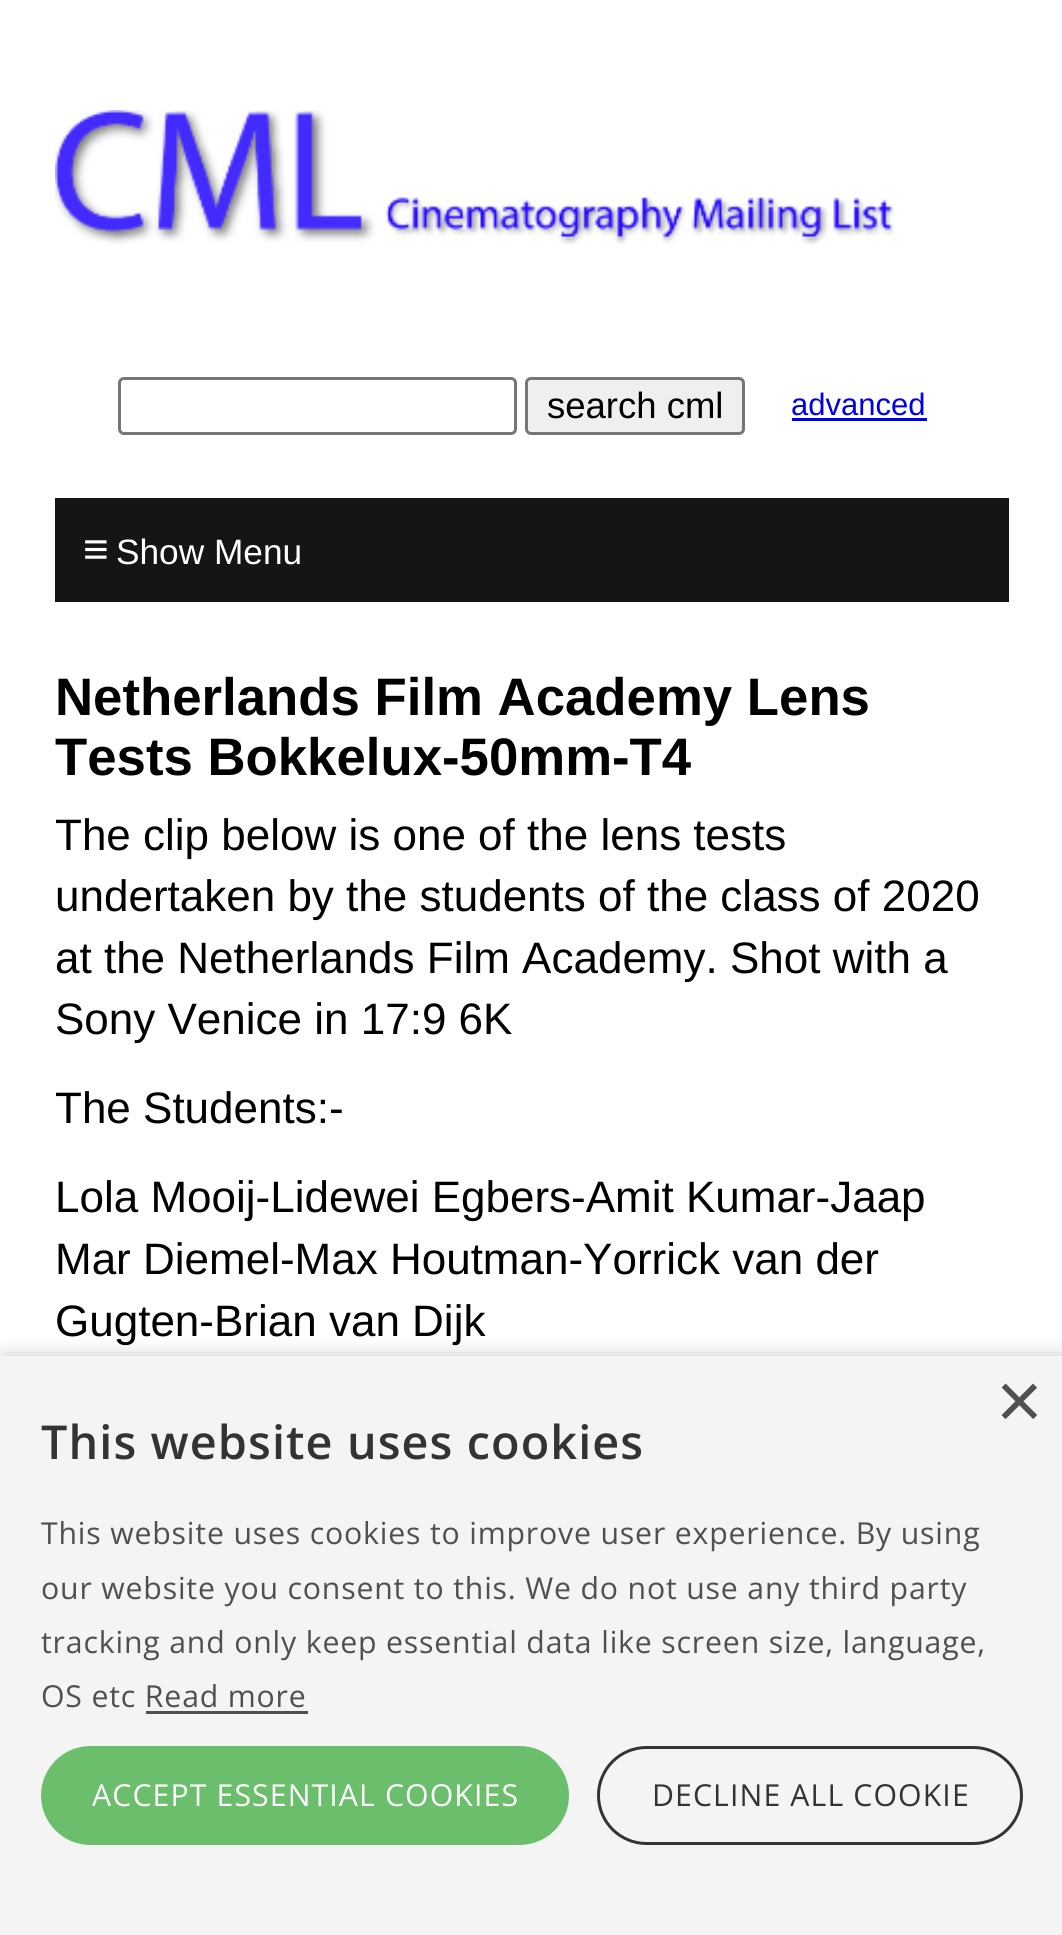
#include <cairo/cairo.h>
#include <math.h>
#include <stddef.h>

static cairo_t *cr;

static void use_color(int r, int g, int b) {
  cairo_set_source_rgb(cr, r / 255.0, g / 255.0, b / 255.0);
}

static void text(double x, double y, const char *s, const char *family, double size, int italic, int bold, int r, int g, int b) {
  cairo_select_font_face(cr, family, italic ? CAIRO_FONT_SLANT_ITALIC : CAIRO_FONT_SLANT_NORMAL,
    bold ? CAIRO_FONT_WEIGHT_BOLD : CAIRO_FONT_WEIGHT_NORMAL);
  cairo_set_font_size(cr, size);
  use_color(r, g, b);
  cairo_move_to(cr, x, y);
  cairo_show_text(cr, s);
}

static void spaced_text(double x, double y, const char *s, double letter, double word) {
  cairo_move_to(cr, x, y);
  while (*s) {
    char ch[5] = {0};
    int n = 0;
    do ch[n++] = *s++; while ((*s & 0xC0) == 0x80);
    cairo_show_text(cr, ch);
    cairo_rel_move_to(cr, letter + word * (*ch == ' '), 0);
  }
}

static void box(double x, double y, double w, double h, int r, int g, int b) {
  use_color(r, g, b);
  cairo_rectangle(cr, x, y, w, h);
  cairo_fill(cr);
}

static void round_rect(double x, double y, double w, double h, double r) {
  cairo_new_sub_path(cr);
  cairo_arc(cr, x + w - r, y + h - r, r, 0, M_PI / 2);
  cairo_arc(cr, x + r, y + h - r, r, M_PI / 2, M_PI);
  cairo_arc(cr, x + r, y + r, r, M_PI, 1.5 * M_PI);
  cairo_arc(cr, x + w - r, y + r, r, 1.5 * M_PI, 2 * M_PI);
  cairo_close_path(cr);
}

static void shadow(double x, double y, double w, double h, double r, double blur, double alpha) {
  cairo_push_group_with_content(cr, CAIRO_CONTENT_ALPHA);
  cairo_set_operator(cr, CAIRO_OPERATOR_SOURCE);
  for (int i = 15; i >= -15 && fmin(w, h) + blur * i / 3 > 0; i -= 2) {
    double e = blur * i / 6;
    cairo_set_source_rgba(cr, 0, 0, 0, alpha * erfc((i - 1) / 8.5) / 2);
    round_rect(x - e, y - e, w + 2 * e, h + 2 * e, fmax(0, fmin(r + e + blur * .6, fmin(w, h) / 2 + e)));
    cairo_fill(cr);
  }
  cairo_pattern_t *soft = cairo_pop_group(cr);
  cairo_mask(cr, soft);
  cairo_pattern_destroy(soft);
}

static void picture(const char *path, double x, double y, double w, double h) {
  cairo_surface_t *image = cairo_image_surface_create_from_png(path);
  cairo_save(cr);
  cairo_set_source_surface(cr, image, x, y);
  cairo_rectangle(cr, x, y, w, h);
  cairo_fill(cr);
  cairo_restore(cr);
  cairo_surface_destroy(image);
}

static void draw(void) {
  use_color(255, 255, 255);
  cairo_paint(cr);
  picture("img_01.png", 55, 110, 840, 135);
  round_rect(119.5, 378.5, 396, 55, 4.5);
  use_color(118, 118, 118);
  cairo_set_line_width(cr, 3);
  cairo_stroke(cr);
  use_color(239, 239, 239);
  round_rect(526.5, 378.5, 217, 55, 4.5);
  cairo_fill_preserve(cr);
  use_color(118, 118, 118);
  cairo_stroke(cr);
  box(792, 418, 135, 3, 0, 0, 238);
  box(55, 498, 954, 104, 21, 21, 21);
  use_color(0, 0, 0);
  shadow(3, 1361, 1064, 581, 0, 11, 0.35);
  box(0, 1356, 1062, 579, 244, 244, 244);
  box(146, 1711, 162, 3, 80, 80, 80);
  use_color(107, 190, 107);
  round_rect(41, 1746, 528, 99, 49.5);
  cairo_fill(cr);
  round_rect(598.5, 1747.5, 423, 96, 48);
  use_color(51, 51, 51);
  cairo_stroke(cr);
  text(547, 418, "search cml", "Liberation Sans", 36.5, 0, 0, 0, 0, 0);
  text(791, 415, "advanced", "Liberation Sans", 31, 0, 0, 0, 0, 238);
  text(83, 564, "≡", "Liberation Sans", 44, 0, 0, 255, 255, 255);
  text(116, 564, "Show Menu", "Liberation Sans", 35.25, 0, 0, 255, 255, 255);
  text(55, 715, "Netherlands Film Academy Lens", "Liberation Sans", 52.75, 0, 1, 0, 0, 0);
  text(55, 775, "Tests Bokkelux-50mm-T4", "Liberation Sans", 52.75, 0, 1, 0, 0, 0);
  text(55, 850, "The clip below is one of the lens tests", "Liberation Sans", 44, 0, 0, 0, 0, 0);
  text(55, 911, "undertaken by the students of the class of 2020", "Liberation Sans", 44, 0, 0, 0, 0, 0);
  text(55, 973, "at the Netherlands Film Academy. Shot with a", "Liberation Sans", 44, 0, 0, 0, 0, 0);
  text(55, 1034, "Sony Venice in 17:9 6K", "Liberation Sans", 44, 0, 0, 0, 0, 0);
  text(55, 1123, "The Students:-", "Liberation Sans", 44, 0, 0, 0, 0, 0);
  text(55, 1212, "Lola Mooij-Lidewei Egbers-Amit Kumar-Jaap", "Liberation Sans", 44, 0, 0, 0, 0, 0);
  text(55, 1274, "Mar Diemel-Max Houtman-Yorrick van der", "Liberation Sans", 44, 0, 0, 0, 0, 0);
  text(55, 1336, "Gugten-Brian van Dijk", "Liberation Sans", 44, 0, 0, 0, 0, 0);
  text(996, 1428, "×", "Liberation Sans", 80, 0, 0, 80, 80, 80);
  cairo_select_font_face(cr, "Open Sans SemiBold", CAIRO_FONT_SLANT_NORMAL, CAIRO_FONT_WEIGHT_NORMAL);
  cairo_set_font_size(cr, 46.75);
  use_color(51, 51, 51);
  spaced_text(41, 1459, "This website uses cookies", 1.1, 0);
  cairo_select_font_face(cr, "Open Sans", CAIRO_FONT_SLANT_NORMAL, CAIRO_FONT_WEIGHT_NORMAL);
  cairo_set_font_size(cr, 30.25);
  use_color(80, 80, 80);
  spaced_text(41, 1544, "This website uses cookies to improve user experience. By using", 0.82, 0);
  spaced_text(41, 1599, "our website you consent to this. We do not use any third party", 0.82, 0);
  spaced_text(41, 1653, "tracking and only keep essential data like screen size, language,", 0.82, 0);
  spaced_text(41, 1707, "OS etc Read more", 0.82, 0);
  use_color(255, 255, 255);
  spaced_text(92, 1806, "ACCEPT ESSENTIAL COOKIES", 1.1, 0);
  use_color(51, 51, 51);
  spaced_text(652, 1806, "DECLINE ALL COOKIE", 1.1, 0);
}

int main(void) {
  cairo_surface_t *surface = cairo_image_surface_create(CAIRO_FORMAT_RGB24, 1062, 1935);
  cr = cairo_create(surface);
  cairo_font_options_t *options = cairo_font_options_create();
  cairo_font_options_set_hint_metrics(options, CAIRO_HINT_METRICS_OFF);
  cairo_font_options_set_hint_style(options, CAIRO_HINT_STYLE_NONE);
  cairo_set_font_options(cr, options);
  cairo_set_miter_limit(cr, 4);
  draw();
  cairo_surface_write_to_png(surface, "out.png");
  cairo_font_options_destroy(options);
  cairo_destroy(cr);
  cairo_surface_destroy(surface);
  return 0;
}
